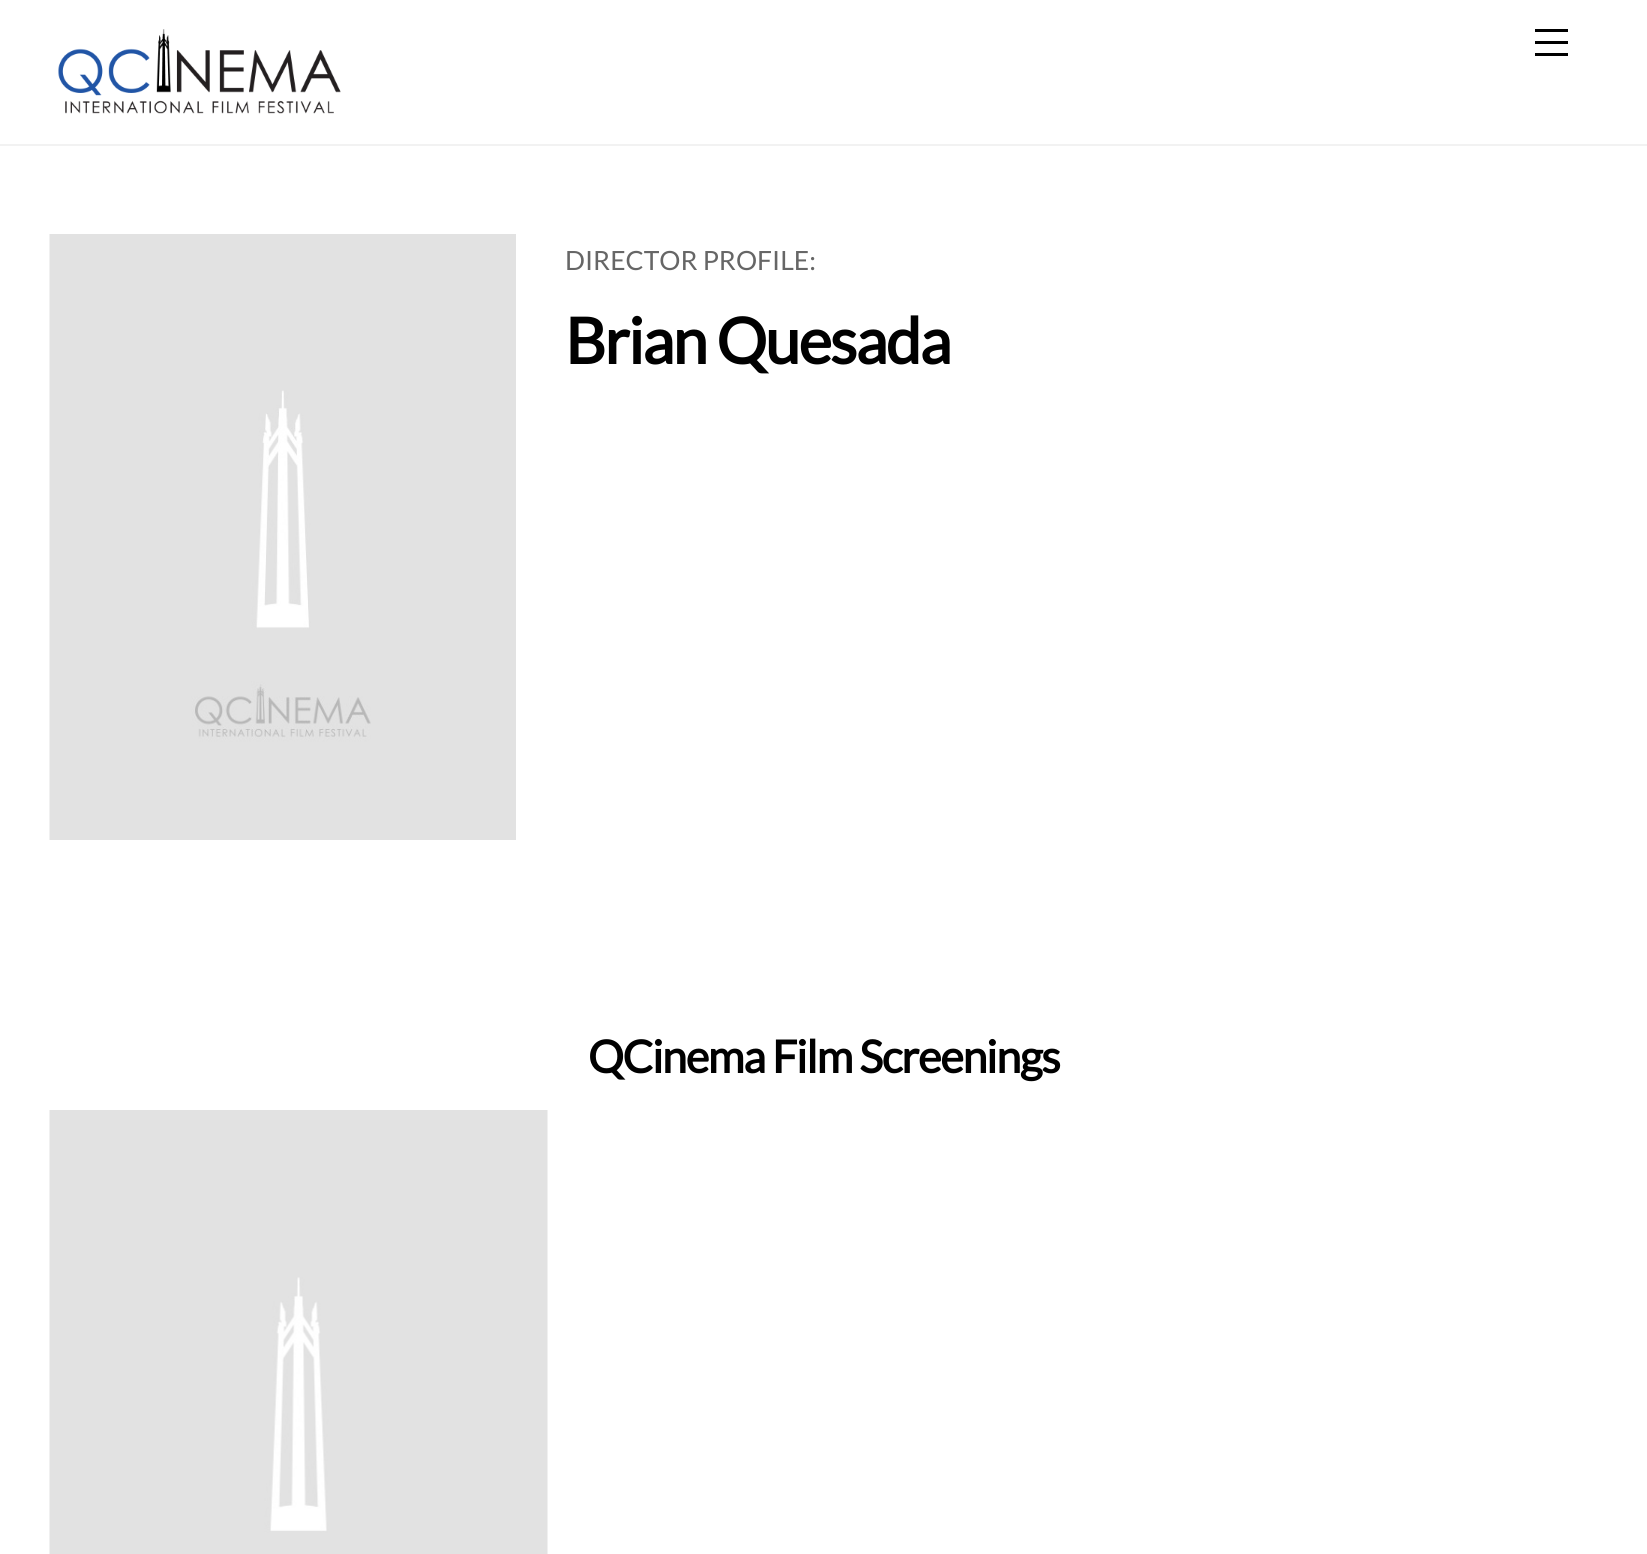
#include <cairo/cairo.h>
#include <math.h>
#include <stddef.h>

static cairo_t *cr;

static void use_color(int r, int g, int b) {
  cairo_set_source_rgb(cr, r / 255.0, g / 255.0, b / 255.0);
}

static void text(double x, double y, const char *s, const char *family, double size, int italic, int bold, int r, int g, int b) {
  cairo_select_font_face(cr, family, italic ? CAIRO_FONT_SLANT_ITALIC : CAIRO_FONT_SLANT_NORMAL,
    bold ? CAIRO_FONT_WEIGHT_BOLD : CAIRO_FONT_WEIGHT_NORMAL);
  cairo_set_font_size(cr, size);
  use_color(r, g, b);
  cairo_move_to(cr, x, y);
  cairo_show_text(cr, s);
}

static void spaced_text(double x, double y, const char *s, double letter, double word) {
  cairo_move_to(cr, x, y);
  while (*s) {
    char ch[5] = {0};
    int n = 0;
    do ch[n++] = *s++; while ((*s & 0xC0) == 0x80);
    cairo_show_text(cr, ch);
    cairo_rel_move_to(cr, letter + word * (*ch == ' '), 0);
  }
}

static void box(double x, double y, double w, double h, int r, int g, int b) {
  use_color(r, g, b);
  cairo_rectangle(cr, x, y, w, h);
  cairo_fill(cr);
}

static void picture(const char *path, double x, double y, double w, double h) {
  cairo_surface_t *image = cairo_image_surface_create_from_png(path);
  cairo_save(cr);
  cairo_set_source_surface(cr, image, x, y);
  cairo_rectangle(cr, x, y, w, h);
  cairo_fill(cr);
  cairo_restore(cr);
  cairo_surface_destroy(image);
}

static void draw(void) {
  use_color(255, 255, 255);
  cairo_paint(cr);
  box(0, 144, 1647, 2, 242, 242, 242);
  picture("img_01.png", 58, 29, 283, 85);
  box(1535, 53, 33, 3, 0, 0, 0);
  box(1535, 29, 33, 3, 0, 0, 0);
  box(1535, 41, 33, 3, 0, 0, 0);
  picture("img_02.png", 49, 234, 467, 606);
  picture("img_03.png", 49, 1110, 499, 444);
  text(565, 270, "DIRECTOR PROFILE:", "Lato", 26.5, 0, 0, 102, 102, 102);
  cairo_select_font_face(cr, "Lato", CAIRO_FONT_SLANT_NORMAL, CAIRO_FONT_WEIGHT_BOLD);
  cairo_set_font_size(cr, 63.5);
  use_color(0, 0, 0);
  spaced_text(565, 364, "Brian Quesada", -1.9, 0);
  cairo_set_font_size(cr, 44.9);
  spaced_text(588, 1073, "QCinema Film Screenings", -1.35, 0);
}

int main(void) {
  cairo_surface_t *surface = cairo_image_surface_create(CAIRO_FORMAT_RGB24, 1647, 1554);
  cr = cairo_create(surface);
  cairo_font_options_t *options = cairo_font_options_create();
  cairo_font_options_set_hint_metrics(options, CAIRO_HINT_METRICS_OFF);
  cairo_font_options_set_hint_style(options, CAIRO_HINT_STYLE_NONE);
  cairo_set_font_options(cr, options);
  cairo_set_miter_limit(cr, 4);
  draw();
  cairo_surface_write_to_png(surface, "out.png");
  cairo_font_options_destroy(options);
  cairo_destroy(cr);
  cairo_surface_destroy(surface);
  return 0;
}
